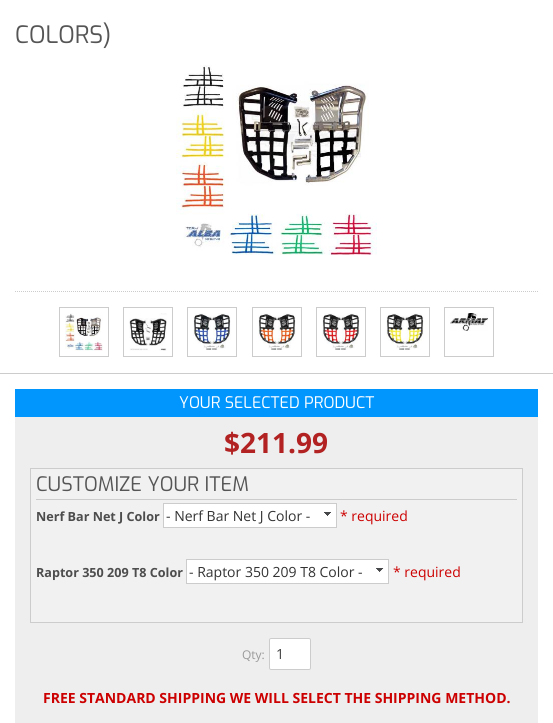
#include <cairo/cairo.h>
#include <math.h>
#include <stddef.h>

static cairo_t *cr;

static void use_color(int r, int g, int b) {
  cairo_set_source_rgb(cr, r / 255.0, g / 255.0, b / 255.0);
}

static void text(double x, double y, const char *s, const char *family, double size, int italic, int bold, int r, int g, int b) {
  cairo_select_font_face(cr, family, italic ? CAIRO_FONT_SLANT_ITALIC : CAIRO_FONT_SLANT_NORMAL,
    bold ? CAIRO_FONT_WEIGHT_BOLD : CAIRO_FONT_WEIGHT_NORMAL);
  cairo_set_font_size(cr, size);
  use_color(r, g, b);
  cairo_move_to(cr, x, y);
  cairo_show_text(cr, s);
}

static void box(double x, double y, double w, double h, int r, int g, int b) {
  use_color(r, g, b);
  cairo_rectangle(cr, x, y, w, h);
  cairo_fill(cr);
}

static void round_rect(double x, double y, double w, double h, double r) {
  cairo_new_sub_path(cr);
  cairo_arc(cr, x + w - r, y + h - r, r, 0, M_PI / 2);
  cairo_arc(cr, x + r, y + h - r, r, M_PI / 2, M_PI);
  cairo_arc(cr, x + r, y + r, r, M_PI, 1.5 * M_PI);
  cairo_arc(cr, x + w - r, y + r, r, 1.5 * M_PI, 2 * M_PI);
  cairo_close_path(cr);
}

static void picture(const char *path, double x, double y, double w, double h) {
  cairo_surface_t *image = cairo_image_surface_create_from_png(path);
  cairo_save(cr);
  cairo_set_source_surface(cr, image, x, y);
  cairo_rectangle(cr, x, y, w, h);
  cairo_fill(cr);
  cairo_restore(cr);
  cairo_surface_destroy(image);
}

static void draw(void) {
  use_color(255, 255, 255);
  cairo_paint(cr);
  box(0, 373, 553, 1, 204, 204, 204);
  picture("img_01.png", 176, 65, 201, 190);
  cairo_new_path(cr);
  cairo_move_to(cr, 15, 291.5);
  cairo_line_to(cr, 538, 291.5);
  cairo_set_line_width(cr, 1);
  cairo_set_dash(cr, (double[]){1, 1}, 2, 0);
  cairo_stroke(cr);
  cairo_rectangle(cr, 59.5, 307.5, 49, 49);
  cairo_set_dash(cr, NULL, 0, 0);
  cairo_stroke(cr);
  picture("img_02.png", 65, 313, 38, 38);
  cairo_rectangle(cr, 123.5, 307.5, 49, 49);
  cairo_stroke(cr);
  picture("img_03.png", 129, 313, 38, 38);
  cairo_rectangle(cr, 187.5, 307.5, 49, 49);
  cairo_stroke(cr);
  picture("img_04.png", 193, 313, 38, 37);
  cairo_rectangle(cr, 252.5, 307.5, 49, 49);
  cairo_stroke(cr);
  picture("img_05.png", 258, 313, 38, 37);
  cairo_rectangle(cr, 316.5, 307.5, 49, 49);
  cairo_stroke(cr);
  picture("img_06.png", 322, 313, 38, 37);
  cairo_rectangle(cr, 380.5, 307.5, 49, 49);
  cairo_stroke(cr);
  picture("img_07.png", 386, 313, 38, 37);
  cairo_rectangle(cr, 444.5, 307.5, 49, 49);
  cairo_stroke(cr);
  picture("img_08.png", 450, 313, 38, 18);
  box(15, 417, 523, 306, 238, 238, 238);
  box(15, 389, 523, 28, 1, 150, 254);
  use_color(241, 241, 241);
  cairo_rectangle(cr, 30.5, 468.5, 492, 154);
  cairo_fill_preserve(cr);
  use_color(204, 204, 204);
  cairo_stroke(cr);
  box(36, 499, 481, 1, 204, 204, 204);
  box(164, 504, 172, 23, 255, 255, 255);
  picture("img_09.png", 324, 512, 7, 4);
  cairo_rectangle(cr, 163.5, 503.5, 173, 24);
  use_color(204, 204, 204);
  cairo_stroke(cr);
  box(187, 560, 201, 23, 255, 255, 255);
  picture("img_10.png", 376, 568, 8, 4);
  cairo_rectangle(cr, 186.5, 559.5, 202, 24);
  use_color(204, 204, 204);
  cairo_stroke(cr);
  use_color(255, 255, 255);
  round_rect(269.5, 638.5, 41, 31, 1.5);
  cairo_fill_preserve(cr);
  use_color(204, 204, 204);
  cairo_stroke(cr);
  text(15, 43, "COLORS)", "Exo", 24, 0, 0, 85, 85, 85);
  text(179, 408, "YOUR SELECTED PRODUCT", "Exo", 16, 0, 0, 255, 255, 255);
  text(224, 453, "$211.99", "Open Sans", 28, 0, 1, 178, 34, 34);
  text(36, 491, "CUSTOMIZE YOUR ITEM", "Exo", 20, 0, 0, 85, 85, 85);
  text(36, 521, "Nerf Bar Net J Color", "Open Sans", 12.6, 0, 1, 77, 77, 77);
  text(166, 521, "- Nerf Bar Net J Color -", "Open Sans", 14, 0, 0, 51, 51, 51);
  text(340, 521, "* required", "Open Sans", 14, 0, 0, 204, 0, 0);
  text(36, 577, "Raptor 350 209 T8 Color", "Open Sans", 12.6, 0, 1, 77, 77, 77);
  text(189, 577, "- Raptor 350 209 T8 Color -", "Open Sans", 14, 0, 0, 51, 51, 51);
  text(393, 577, "* required", "Open Sans", 14, 0, 0, 204, 0, 0);
  text(242, 659, "Qty:", "Open Sans", 12, 0, 0, 153, 153, 153);
  text(276, 659, "1", "Open Sans", 14, 0, 0, 64, 64, 64);
  text(43, 703, "FREE STANDARD SHIPPING WE WILL SELECT THE SHIPPING METHOD.", "Open Sans", 14, 0, 1, 204, 0, 0);
}

int main(void) {
  cairo_surface_t *surface = cairo_image_surface_create(CAIRO_FORMAT_RGB24, 553, 723);
  cr = cairo_create(surface);
  cairo_font_options_t *options = cairo_font_options_create();
  cairo_font_options_set_hint_metrics(options, CAIRO_HINT_METRICS_OFF);
  cairo_font_options_set_hint_style(options, CAIRO_HINT_STYLE_NONE);
  cairo_set_font_options(cr, options);
  cairo_set_miter_limit(cr, 4);
  draw();
  cairo_surface_write_to_png(surface, "out.png");
  cairo_font_options_destroy(options);
  cairo_destroy(cr);
  cairo_surface_destroy(surface);
  return 0;
}
